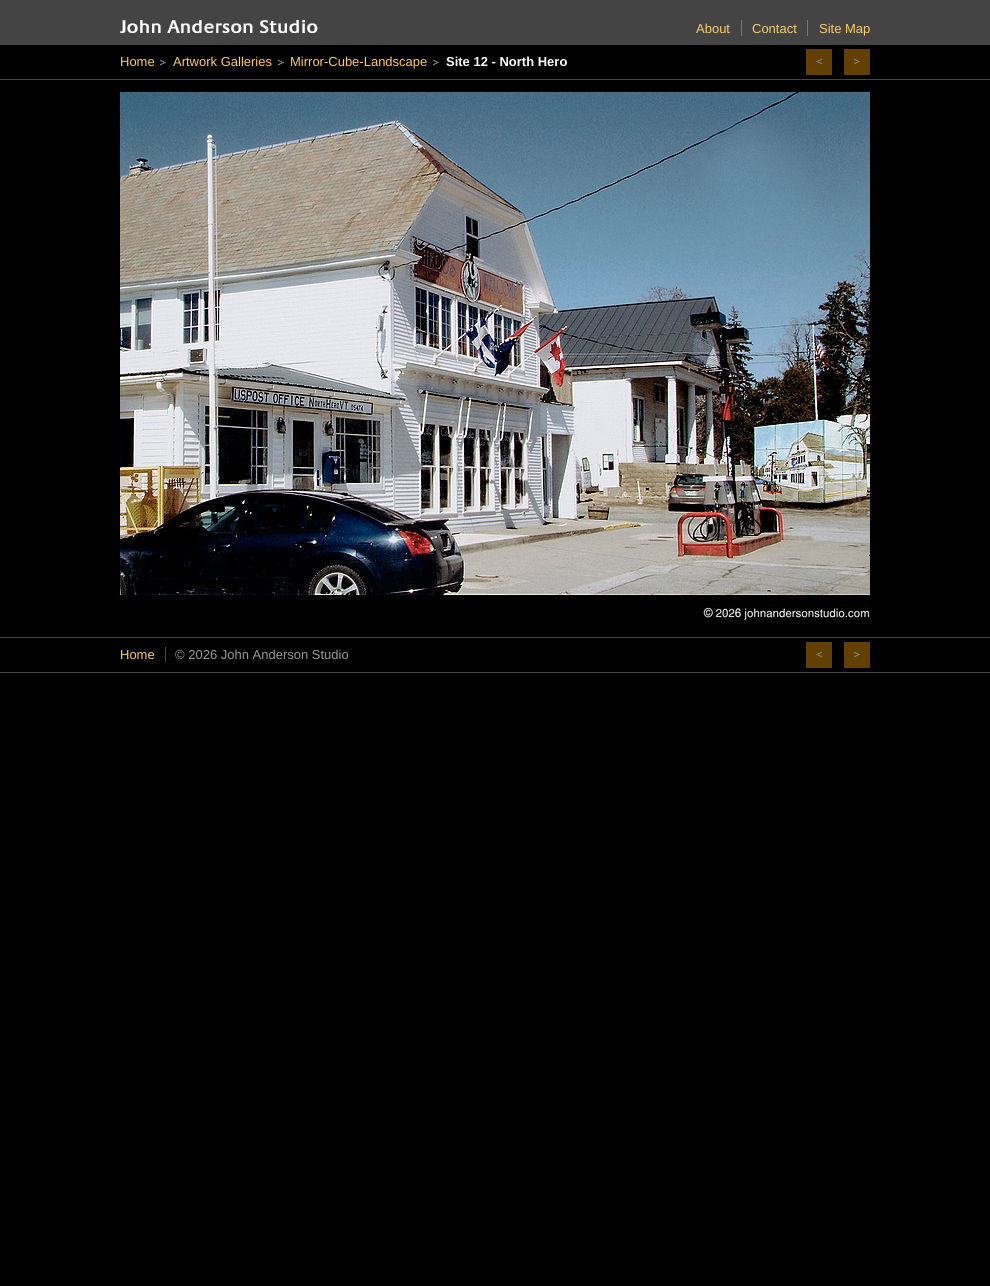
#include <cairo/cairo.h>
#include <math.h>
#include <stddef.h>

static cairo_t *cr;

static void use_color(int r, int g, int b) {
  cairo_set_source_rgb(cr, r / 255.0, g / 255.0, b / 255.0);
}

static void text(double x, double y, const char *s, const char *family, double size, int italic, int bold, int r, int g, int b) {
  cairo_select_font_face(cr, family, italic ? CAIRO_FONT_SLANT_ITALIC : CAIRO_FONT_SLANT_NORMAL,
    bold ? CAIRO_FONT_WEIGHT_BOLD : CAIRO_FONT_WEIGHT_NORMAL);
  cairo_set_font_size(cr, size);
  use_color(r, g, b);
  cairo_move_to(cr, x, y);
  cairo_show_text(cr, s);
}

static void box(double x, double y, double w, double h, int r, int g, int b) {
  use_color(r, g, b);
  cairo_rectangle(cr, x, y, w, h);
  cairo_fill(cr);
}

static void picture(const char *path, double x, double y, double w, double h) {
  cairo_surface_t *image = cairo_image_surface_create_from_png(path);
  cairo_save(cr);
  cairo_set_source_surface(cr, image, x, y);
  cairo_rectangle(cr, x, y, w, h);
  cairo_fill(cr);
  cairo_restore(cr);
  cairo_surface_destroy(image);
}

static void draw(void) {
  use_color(0, 0, 0);
  cairo_paint(cr);
  box(0, 0, 990, 45, 68, 68, 68);
  picture("img_01.png", 120, 20, 198, 13);
  box(741, 20, 1, 16, 119, 119, 119);
  box(807, 20, 1, 16, 119, 119, 119);
  picture("img_02.png", 160, 59, 6, 7);
  picture("img_02.png", 278, 59, 6, 7);
  picture("img_02.png", 433, 59, 6, 7);
  box(806, 49, 26, 26, 97, 64, 0);
  picture("img_03.png", 816, 58, 6, 7);
  box(844, 49, 26, 26, 97, 64, 0);
  picture("img_04.png", 854, 58, 6, 7);
  box(0, 79, 990, 1, 68, 68, 68);
  picture("img_05.png", 120, 92, 750, 528);
  box(0, 637, 990, 1, 68, 68, 68);
  box(165, 647, 1, 15, 68, 68, 68);
  box(806, 642, 26, 26, 97, 64, 0);
  picture("img_03.png", 816, 651, 6, 7);
  box(844, 642, 26, 26, 97, 64, 0);
  picture("img_04.png", 854, 651, 6, 7);
  box(0, 672, 990, 1, 68, 68, 68);
  text(696, 33, "About", "Liberation Sans", 13, 0, 0, 255, 204, 102);
  text(752, 33, "Contact", "Liberation Sans", 13, 0, 0, 255, 204, 102);
  text(819, 33, "Site Map", "Liberation Sans", 13, 0, 0, 255, 204, 102);
  text(120, 66, "Home", "Liberation Sans", 13, 0, 0, 255, 204, 102);
  text(173, 66, "Artwork Galleries", "Liberation Sans", 13, 0, 0, 255, 204, 102);
  text(290, 66, "Mirror-Cube-Landscape", "Liberation Sans", 13, 0, 0, 255, 204, 102);
  text(446, 66, "Site 12 - North Hero", "Liberation Sans", 13, 0, 1, 255, 255, 255);
  text(120, 659, "Home", "Liberation Sans", 13, 0, 0, 255, 204, 102);
  text(175, 659, "© 2026 John Anderson Studio", "Liberation Sans", 13, 0, 0, 153, 153, 153);
}

int main(void) {
  cairo_surface_t *surface = cairo_image_surface_create(CAIRO_FORMAT_RGB24, 990, 1286);
  cr = cairo_create(surface);
  cairo_font_options_t *options = cairo_font_options_create();
  cairo_font_options_set_hint_metrics(options, CAIRO_HINT_METRICS_OFF);
  cairo_font_options_set_hint_style(options, CAIRO_HINT_STYLE_NONE);
  cairo_set_font_options(cr, options);
  cairo_set_miter_limit(cr, 4);
  draw();
  cairo_surface_write_to_png(surface, "out.png");
  cairo_font_options_destroy(options);
  cairo_destroy(cr);
  cairo_surface_destroy(surface);
  return 0;
}
